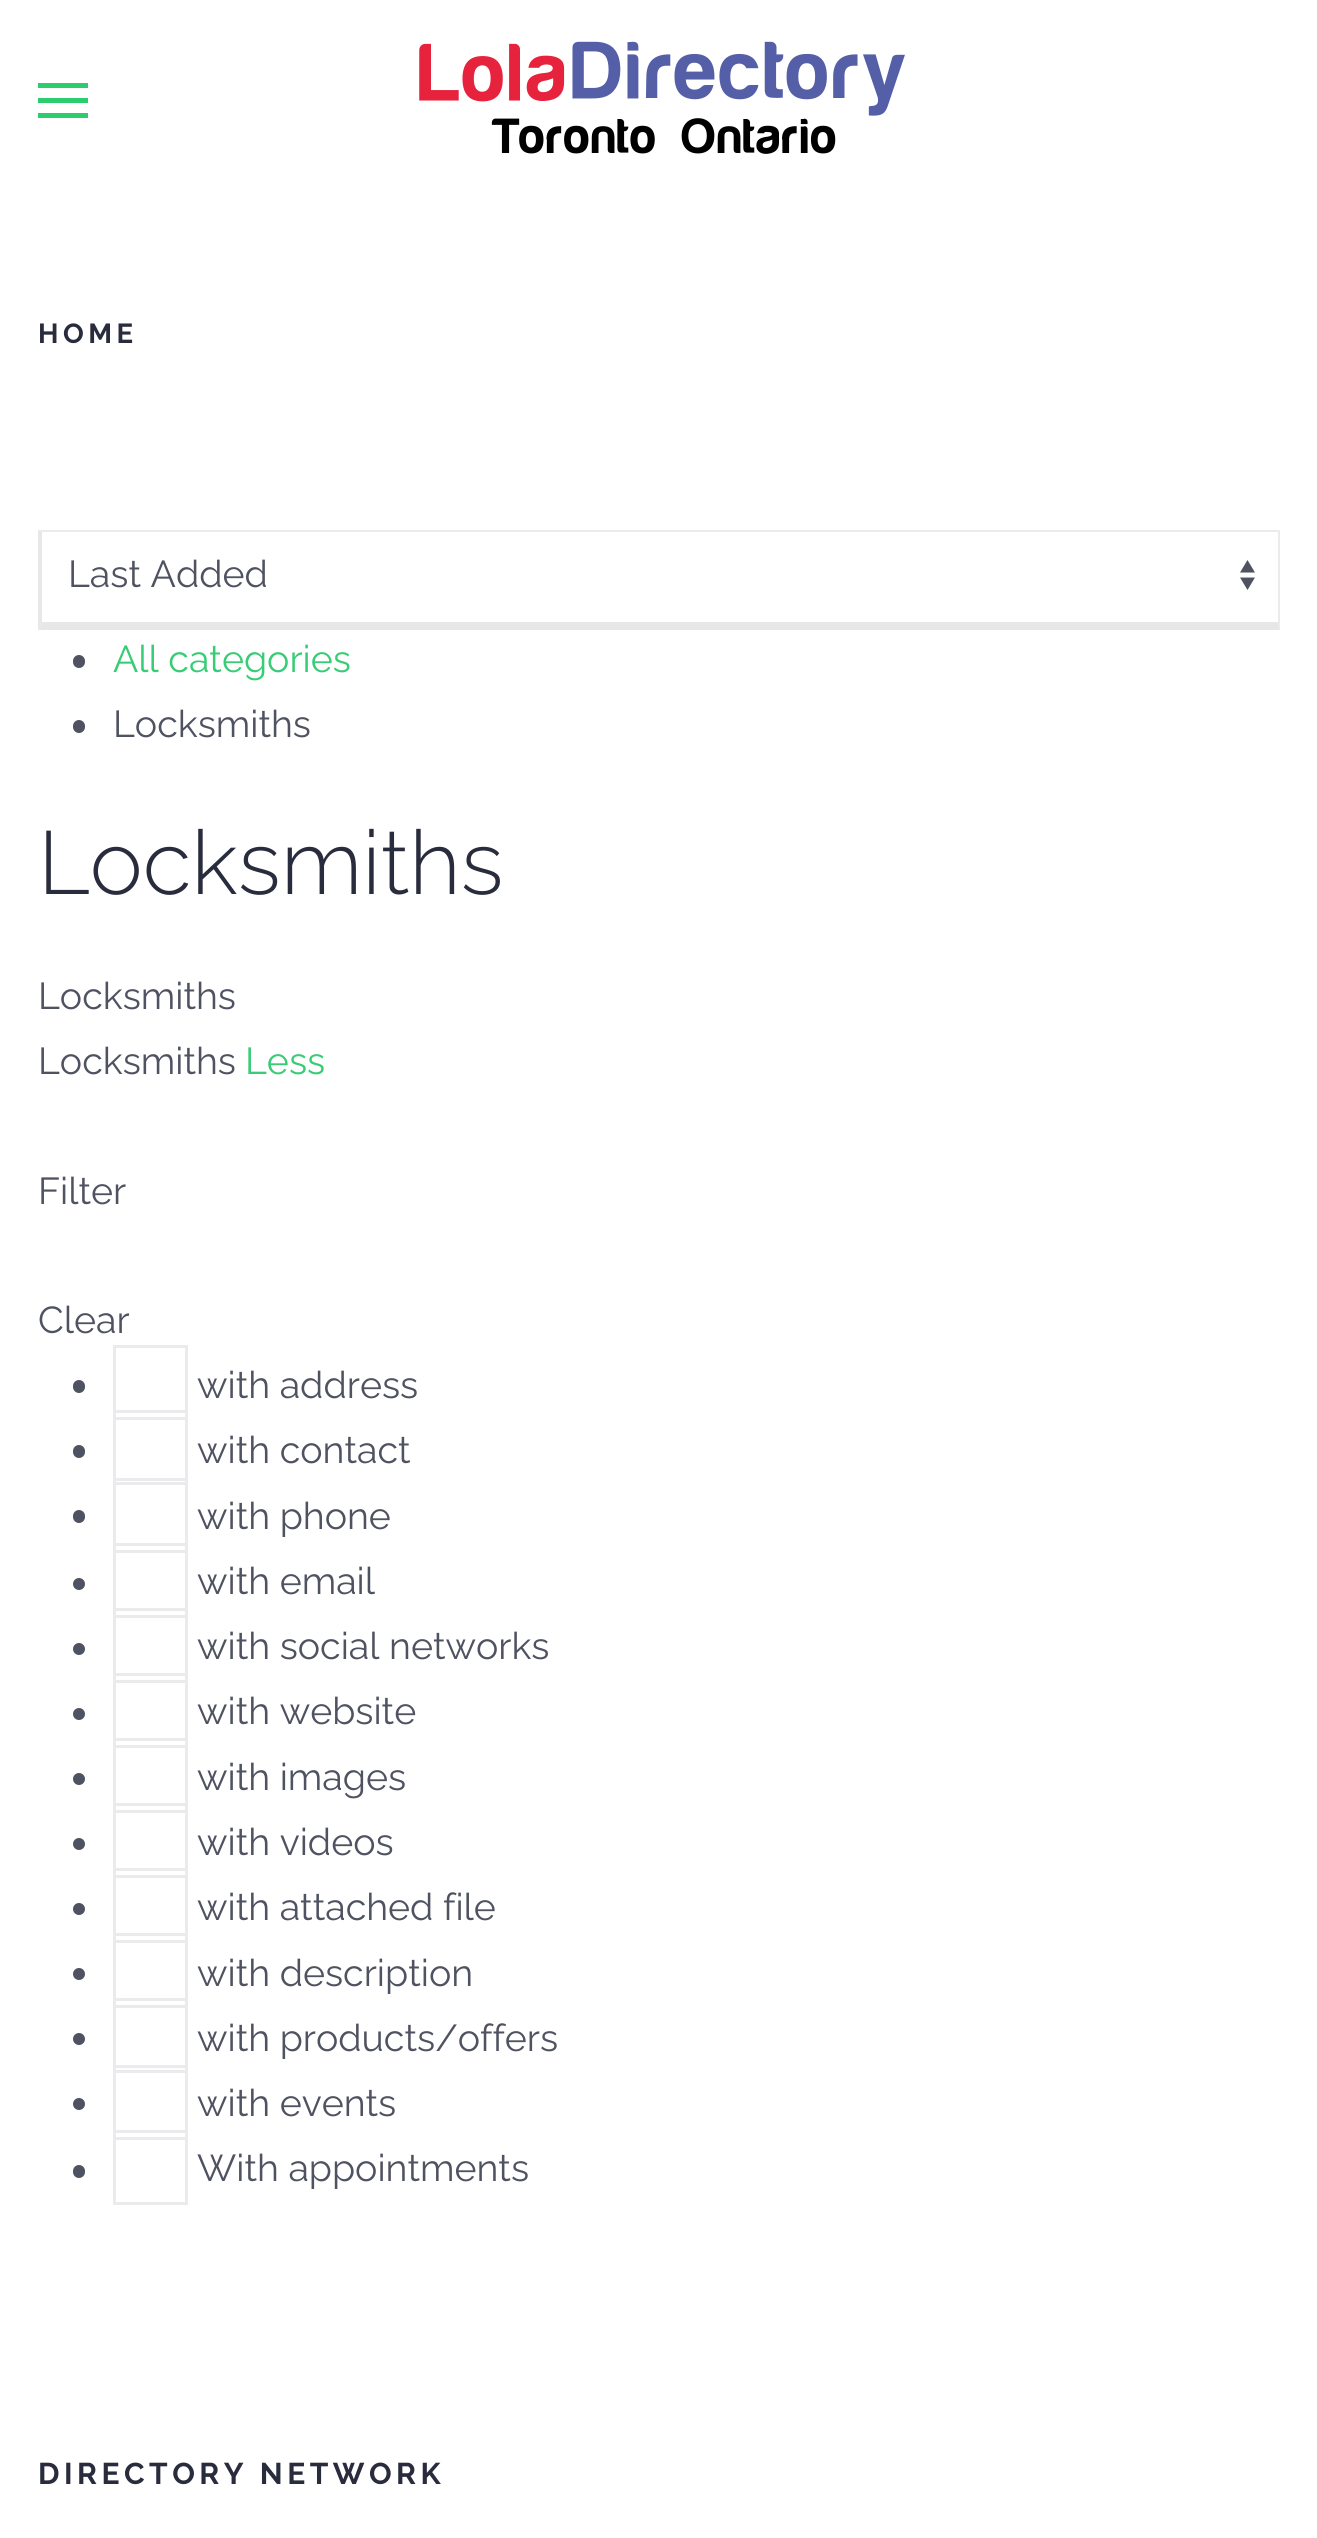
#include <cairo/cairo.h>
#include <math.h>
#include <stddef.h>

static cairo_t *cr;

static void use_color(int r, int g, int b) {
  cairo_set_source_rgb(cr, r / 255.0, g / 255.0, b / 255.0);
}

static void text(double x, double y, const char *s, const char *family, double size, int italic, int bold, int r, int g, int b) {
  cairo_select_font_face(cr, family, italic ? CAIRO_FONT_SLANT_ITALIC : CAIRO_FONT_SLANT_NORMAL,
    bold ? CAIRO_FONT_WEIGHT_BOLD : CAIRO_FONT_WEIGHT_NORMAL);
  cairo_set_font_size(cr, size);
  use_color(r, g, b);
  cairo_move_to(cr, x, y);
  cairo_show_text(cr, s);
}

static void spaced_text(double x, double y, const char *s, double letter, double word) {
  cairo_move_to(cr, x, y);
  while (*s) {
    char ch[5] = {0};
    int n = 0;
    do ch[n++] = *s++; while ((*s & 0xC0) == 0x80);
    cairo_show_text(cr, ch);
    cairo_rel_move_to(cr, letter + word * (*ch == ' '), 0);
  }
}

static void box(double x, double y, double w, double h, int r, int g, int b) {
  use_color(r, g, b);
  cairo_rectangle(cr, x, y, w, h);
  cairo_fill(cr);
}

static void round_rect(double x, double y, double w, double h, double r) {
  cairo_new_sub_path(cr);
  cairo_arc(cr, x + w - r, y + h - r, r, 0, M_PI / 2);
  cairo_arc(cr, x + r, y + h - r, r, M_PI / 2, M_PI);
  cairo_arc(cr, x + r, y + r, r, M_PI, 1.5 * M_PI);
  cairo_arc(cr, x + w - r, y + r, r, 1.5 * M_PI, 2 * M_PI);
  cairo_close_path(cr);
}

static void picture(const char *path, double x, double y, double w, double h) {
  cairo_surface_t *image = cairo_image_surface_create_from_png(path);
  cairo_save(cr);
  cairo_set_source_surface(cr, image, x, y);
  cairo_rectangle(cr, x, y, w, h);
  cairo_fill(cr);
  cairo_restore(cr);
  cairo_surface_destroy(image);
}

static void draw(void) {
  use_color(255, 255, 255);
  cairo_paint(cr);
  box(38, 83, 50, 5, 44, 205, 110);
  box(38, 98, 50, 5, 44, 205, 110);
  box(38, 113, 50, 5, 44, 205, 110);
  picture("img_01.png", 419, 41, 486, 113);
  use_color(79, 82, 96);
  cairo_new_path(cr);
  cairo_move_to(cr, 1247.5, 560);
  cairo_line_to(cr, 1240, 572.5);
  cairo_line_to(cr, 1255, 572.5);
  cairo_close_path(cr);
  cairo_move_to(cr, 1247.5, 590);
  cairo_line_to(cr, 1240, 577.5);
  cairo_line_to(cr, 1255, 577.5);
  cairo_close_path(cr);
  cairo_fill(cr);
  use_color(235, 235, 237);
  cairo_new_path(cr);
  cairo_move_to(cr, 38, 530);
  cairo_line_to(cr, 1280, 530);
  cairo_line_to(cr, 1278, 532);
  cairo_line_to(cr, 42, 532);
  cairo_close_path(cr);
  cairo_fill(cr);
  cairo_new_path(cr);
  cairo_move_to(cr, 1280, 530);
  cairo_line_to(cr, 1280, 630);
  cairo_line_to(cr, 1278, 622);
  cairo_line_to(cr, 1278, 532);
  cairo_close_path(cr);
  cairo_fill(cr);
  use_color(231, 231, 231);
  cairo_new_path(cr);
  cairo_move_to(cr, 1280, 630);
  cairo_line_to(cr, 38, 630);
  cairo_line_to(cr, 42, 622);
  cairo_line_to(cr, 1278, 622);
  cairo_close_path(cr);
  cairo_fill(cr);
  cairo_new_path(cr);
  cairo_move_to(cr, 38, 630);
  cairo_line_to(cr, 38, 530);
  cairo_line_to(cr, 42, 532);
  cairo_line_to(cr, 42, 622);
  cairo_close_path(cr);
  cairo_fill(cr);
  use_color(79, 82, 96);
  round_rect(73, 655, 12, 13, 6);
  cairo_fill(cr);
  round_rect(73, 720, 12, 13, 6);
  cairo_fill(cr);
  round_rect(73, 1380, 12, 13, 6);
  cairo_fill(cr);
  cairo_rectangle(cr, 114.5, 1346.5, 72, 72);
  use_color(235, 235, 237);
  cairo_set_line_width(cr, 3);
  cairo_stroke(cr);
  use_color(79, 82, 96);
  round_rect(73, 1445, 12, 13, 6);
  cairo_fill(cr);
  cairo_rectangle(cr, 114.5, 1411.5, 72, 72);
  use_color(235, 235, 237);
  cairo_stroke(cr);
  use_color(79, 82, 96);
  round_rect(73, 1510, 12, 13, 6);
  cairo_fill(cr);
  cairo_rectangle(cr, 114.5, 1479.5, 72, 72);
  use_color(235, 235, 237);
  cairo_stroke(cr);
  use_color(79, 82, 96);
  cairo_arc(cr, 79, 1584, 6, 0, 2 * M_PI);
  cairo_fill(cr);
  cairo_rectangle(cr, 114.5, 1544.5, 72, 72);
  use_color(235, 235, 237);
  cairo_stroke(cr);
  use_color(79, 82, 96);
  cairo_arc(cr, 79, 1649, 6, 0, 2 * M_PI);
  cairo_fill(cr);
  cairo_rectangle(cr, 114.5, 1609.5, 72, 72);
  use_color(235, 235, 237);
  cairo_stroke(cr);
  use_color(79, 82, 96);
  cairo_arc(cr, 79, 1714, 6, 0, 2 * M_PI);
  cairo_fill(cr);
  cairo_rectangle(cr, 114.5, 1674.5, 72, 72);
  use_color(235, 235, 237);
  cairo_stroke(cr);
  use_color(79, 82, 96);
  cairo_arc(cr, 79, 1779, 6, 0, 2 * M_PI);
  cairo_fill(cr);
  cairo_rectangle(cr, 114.5, 1739.5, 72, 72);
  use_color(235, 235, 237);
  cairo_stroke(cr);
  use_color(79, 82, 96);
  cairo_arc(cr, 79, 1844, 6, 0, 2 * M_PI);
  cairo_fill(cr);
  cairo_rectangle(cr, 114.5, 1804.5, 72, 72);
  use_color(235, 235, 237);
  cairo_stroke(cr);
  use_color(79, 82, 96);
  cairo_arc(cr, 79, 1909, 6, 0, 2 * M_PI);
  cairo_fill(cr);
  cairo_rectangle(cr, 114.5, 1869.5, 72, 72);
  use_color(235, 235, 237);
  cairo_stroke(cr);
  use_color(79, 82, 96);
  cairo_arc(cr, 79, 1974, 6, 0, 2 * M_PI);
  cairo_fill(cr);
  cairo_rectangle(cr, 114.5, 1934.5, 72, 72);
  use_color(235, 235, 237);
  cairo_stroke(cr);
  use_color(79, 82, 96);
  cairo_arc(cr, 79, 2039, 6, 0, 2 * M_PI);
  cairo_fill(cr);
  cairo_rectangle(cr, 114.5, 1999.5, 72, 72);
  use_color(235, 235, 237);
  cairo_stroke(cr);
  use_color(79, 82, 96);
  cairo_arc(cr, 79, 2104, 6, 0, 2 * M_PI);
  cairo_fill(cr);
  cairo_rectangle(cr, 114.5, 2066.5, 72, 72);
  use_color(235, 235, 237);
  cairo_stroke(cr);
  use_color(79, 82, 96);
  round_rect(73, 2165, 12, 13, 6);
  cairo_fill(cr);
  cairo_rectangle(cr, 114.5, 2131.5, 72, 72);
  use_color(235, 235, 237);
  cairo_stroke(cr);
  cairo_select_font_face(cr, "Raleway Thin", CAIRO_FONT_SLANT_NORMAL, CAIRO_FONT_WEIGHT_NORMAL);
  cairo_set_font_size(cr, 27.5);
  use_color(41, 44, 61);
  spaced_text(38, 343, "HOME", 4.5, 0);
  text(68, 587, "Last Added", "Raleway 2 Thin", 37.5, 0, 0, 79, 82, 96);
  text(113, 672, "All categories", "Raleway 2 Thin", 37.5, 0, 0, 55, 204, 117);
  text(113, 737, "Locksmiths", "Raleway 2 Thin", 37.5, 0, 0, 79, 82, 96);
  text(38, 894, "Locksmiths", "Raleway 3 Thin", 89.25, 0, 0, 41, 44, 61);
  text(38, 1009, "Locksmiths", "Raleway 2 Thin", 37.5, 0, 0, 79, 82, 96);
  text(38, 1074, "Locksmiths", "Raleway 2 Thin", 37.5, 0, 0, 79, 82, 96);
  text(245, 1074, "Less", "Raleway 2 Thin", 37.5, 0, 0, 55, 204, 117);
  text(38, 1204, "Filter", "Raleway 2 Thin", 37.5, 0, 0, 79, 82, 96);
  text(38, 1333, "Clear", "Raleway 2 Thin", 37.5, 0, 0, 79, 82, 96);
  text(197, 1398, "with address", "Raleway 2 Thin", 37.5, 0, 0, 79, 82, 96);
  text(197, 1463, "with contact", "Raleway 2 Thin", 37.5, 0, 0, 79, 82, 96);
  text(197, 1529, "with phone", "Raleway 2 Thin", 37.5, 0, 0, 79, 82, 96);
  text(197, 1594, "with email", "Raleway 2 Thin", 37.5, 0, 0, 79, 82, 96);
  text(197, 1659, "with social networks", "Raleway 2 Thin", 37.5, 0, 0, 79, 82, 96);
  text(197, 1724, "with website", "Raleway 2 Thin", 37.5, 0, 0, 79, 82, 96);
  text(197, 1790, "with images", "Raleway 2 Thin", 37.5, 0, 0, 79, 82, 96);
  text(197, 1855, "with videos", "Raleway 2 Thin", 37.5, 0, 0, 79, 82, 96);
  text(197, 1920, "with attached file", "Raleway 2 Thin", 37.5, 0, 0, 79, 82, 96);
  text(197, 1986, "with description", "Raleway 2 Thin", 37.5, 0, 0, 79, 82, 96);
  text(197, 2051, "with products/offers", "Raleway 2 Thin", 37.5, 0, 0, 79, 82, 96);
  text(197, 2116, "with events", "Raleway 2 Thin", 37.5, 0, 0, 79, 82, 96);
  text(197, 2181, "With appointments", "Raleway 2 Thin", 37.5, 0, 0, 79, 82, 96);
  cairo_select_font_face(cr, "Raleway Thin", CAIRO_FONT_SLANT_NORMAL, CAIRO_FONT_WEIGHT_NORMAL);
  cairo_set_font_size(cr, 30);
  use_color(41, 44, 61);
  spaced_text(38, 2484, "DIRECTORY NETWORK", 4.5, 0);
}

int main(void) {
  cairo_surface_t *surface = cairo_image_surface_create(CAIRO_FORMAT_RGB24, 1317, 2538);
  cr = cairo_create(surface);
  cairo_font_options_t *options = cairo_font_options_create();
  cairo_font_options_set_hint_metrics(options, CAIRO_HINT_METRICS_OFF);
  cairo_font_options_set_hint_style(options, CAIRO_HINT_STYLE_NONE);
  cairo_set_font_options(cr, options);
  cairo_set_miter_limit(cr, 4);
  draw();
  cairo_surface_write_to_png(surface, "out.png");
  cairo_font_options_destroy(options);
  cairo_destroy(cr);
  cairo_surface_destroy(surface);
  return 0;
}
